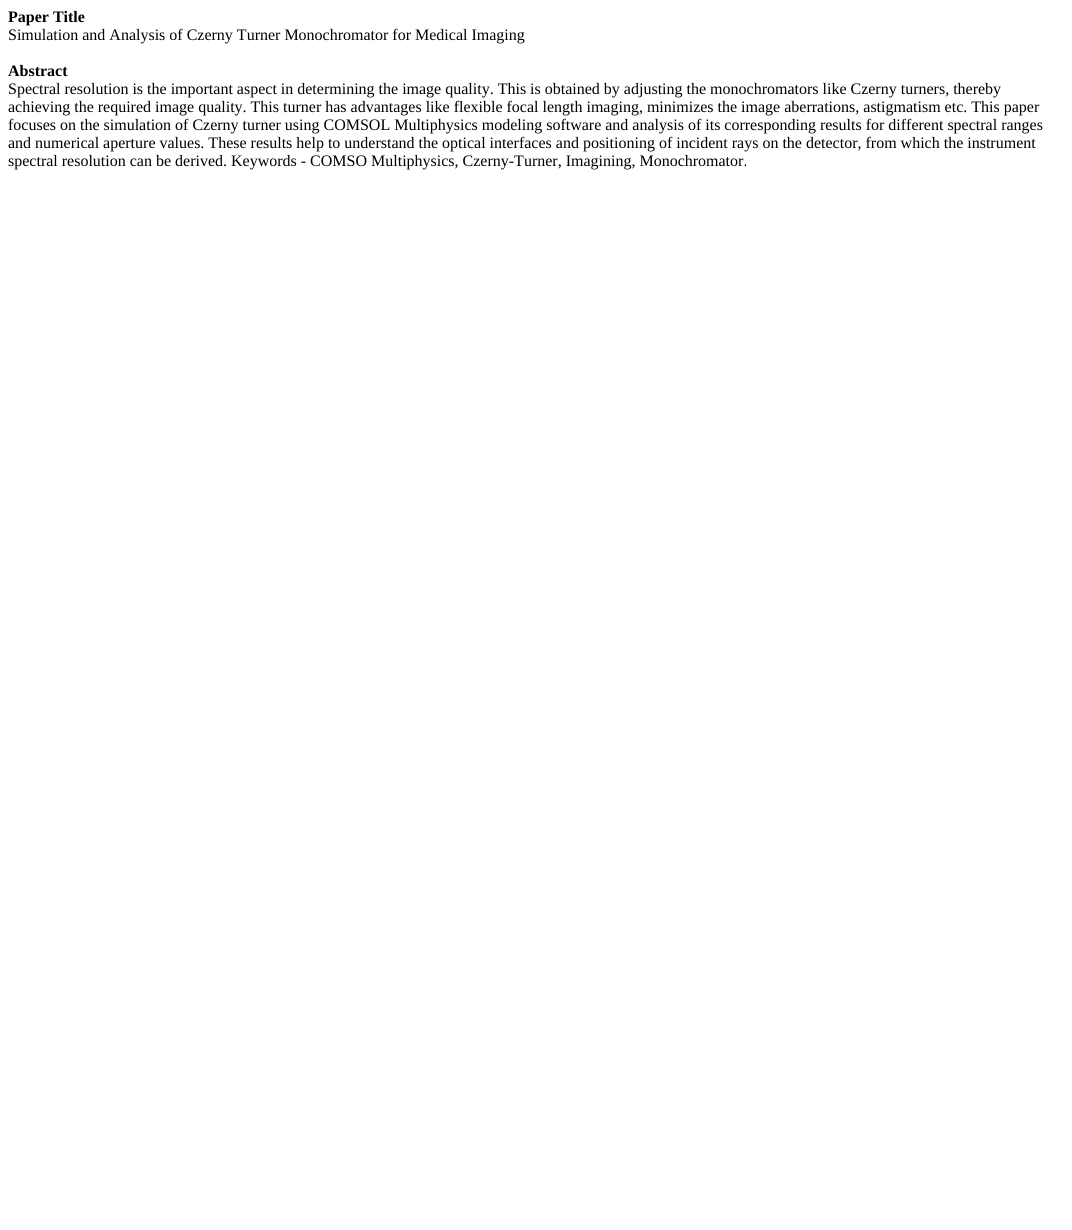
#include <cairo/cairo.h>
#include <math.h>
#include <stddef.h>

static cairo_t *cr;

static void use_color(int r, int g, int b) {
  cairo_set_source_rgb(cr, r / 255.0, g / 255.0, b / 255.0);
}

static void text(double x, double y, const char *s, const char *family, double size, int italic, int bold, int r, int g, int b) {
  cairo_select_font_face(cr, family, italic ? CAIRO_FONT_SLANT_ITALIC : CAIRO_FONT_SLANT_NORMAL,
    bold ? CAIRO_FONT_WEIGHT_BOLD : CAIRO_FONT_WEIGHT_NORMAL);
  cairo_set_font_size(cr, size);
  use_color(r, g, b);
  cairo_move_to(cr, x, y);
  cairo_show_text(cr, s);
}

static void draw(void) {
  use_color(255, 255, 255);
  cairo_paint(cr);
  text(8, 22, "Paper Title", "Liberation Serif", 16, 0, 1, 0, 0, 0);
  text(8, 40, "Simulation and Analysis of Czerny Turner Monochromator for Medical Imaging", "Liberation Serif", 16, 0, 0, 0, 0, 0);
  text(8, 76, "Abstract", "Liberation Serif", 16, 0, 1, 0, 0, 0);
  text(8, 94, "Spectral resolution is the important aspect in determining the image quality. This is obtained by adjusting the monochromators like Czerny turners, thereby", "Liberation Serif", 16, 0, 0, 0, 0, 0);
  text(8, 112, "achieving the required image quality. This turner has advantages like flexible focal length imaging, minimizes the image aberrations, astigmatism etc. This paper", "Liberation Serif", 16, 0, 0, 0, 0, 0);
  text(8, 130, "focuses on the simulation of Czerny turner using COMSOL Multiphysics modeling software and analysis of its corresponding results for different spectral ranges", "Liberation Serif", 16, 0, 0, 0, 0, 0);
  text(8, 148, "and numerical aperture values. These results help to understand the optical interfaces and positioning of incident rays on the detector, from which the instrument", "Liberation Serif", 16, 0, 0, 0, 0, 0);
  text(8, 166, "spectral resolution can be derived. Keywords - COMSO Multiphysics, Czerny-Turner, Imagining, Monochromator.", "Liberation Serif", 16, 0, 0, 0, 0, 0);
}

int main(void) {
  cairo_surface_t *surface = cairo_image_surface_create(CAIRO_FORMAT_RGB24, 1072, 1230);
  cr = cairo_create(surface);
  cairo_font_options_t *options = cairo_font_options_create();
  cairo_font_options_set_hint_metrics(options, CAIRO_HINT_METRICS_OFF);
  cairo_font_options_set_hint_style(options, CAIRO_HINT_STYLE_NONE);
  cairo_set_font_options(cr, options);
  cairo_set_miter_limit(cr, 4);
  draw();
  cairo_surface_write_to_png(surface, "out.png");
  cairo_font_options_destroy(options);
  cairo_destroy(cr);
  cairo_surface_destroy(surface);
  return 0;
}
